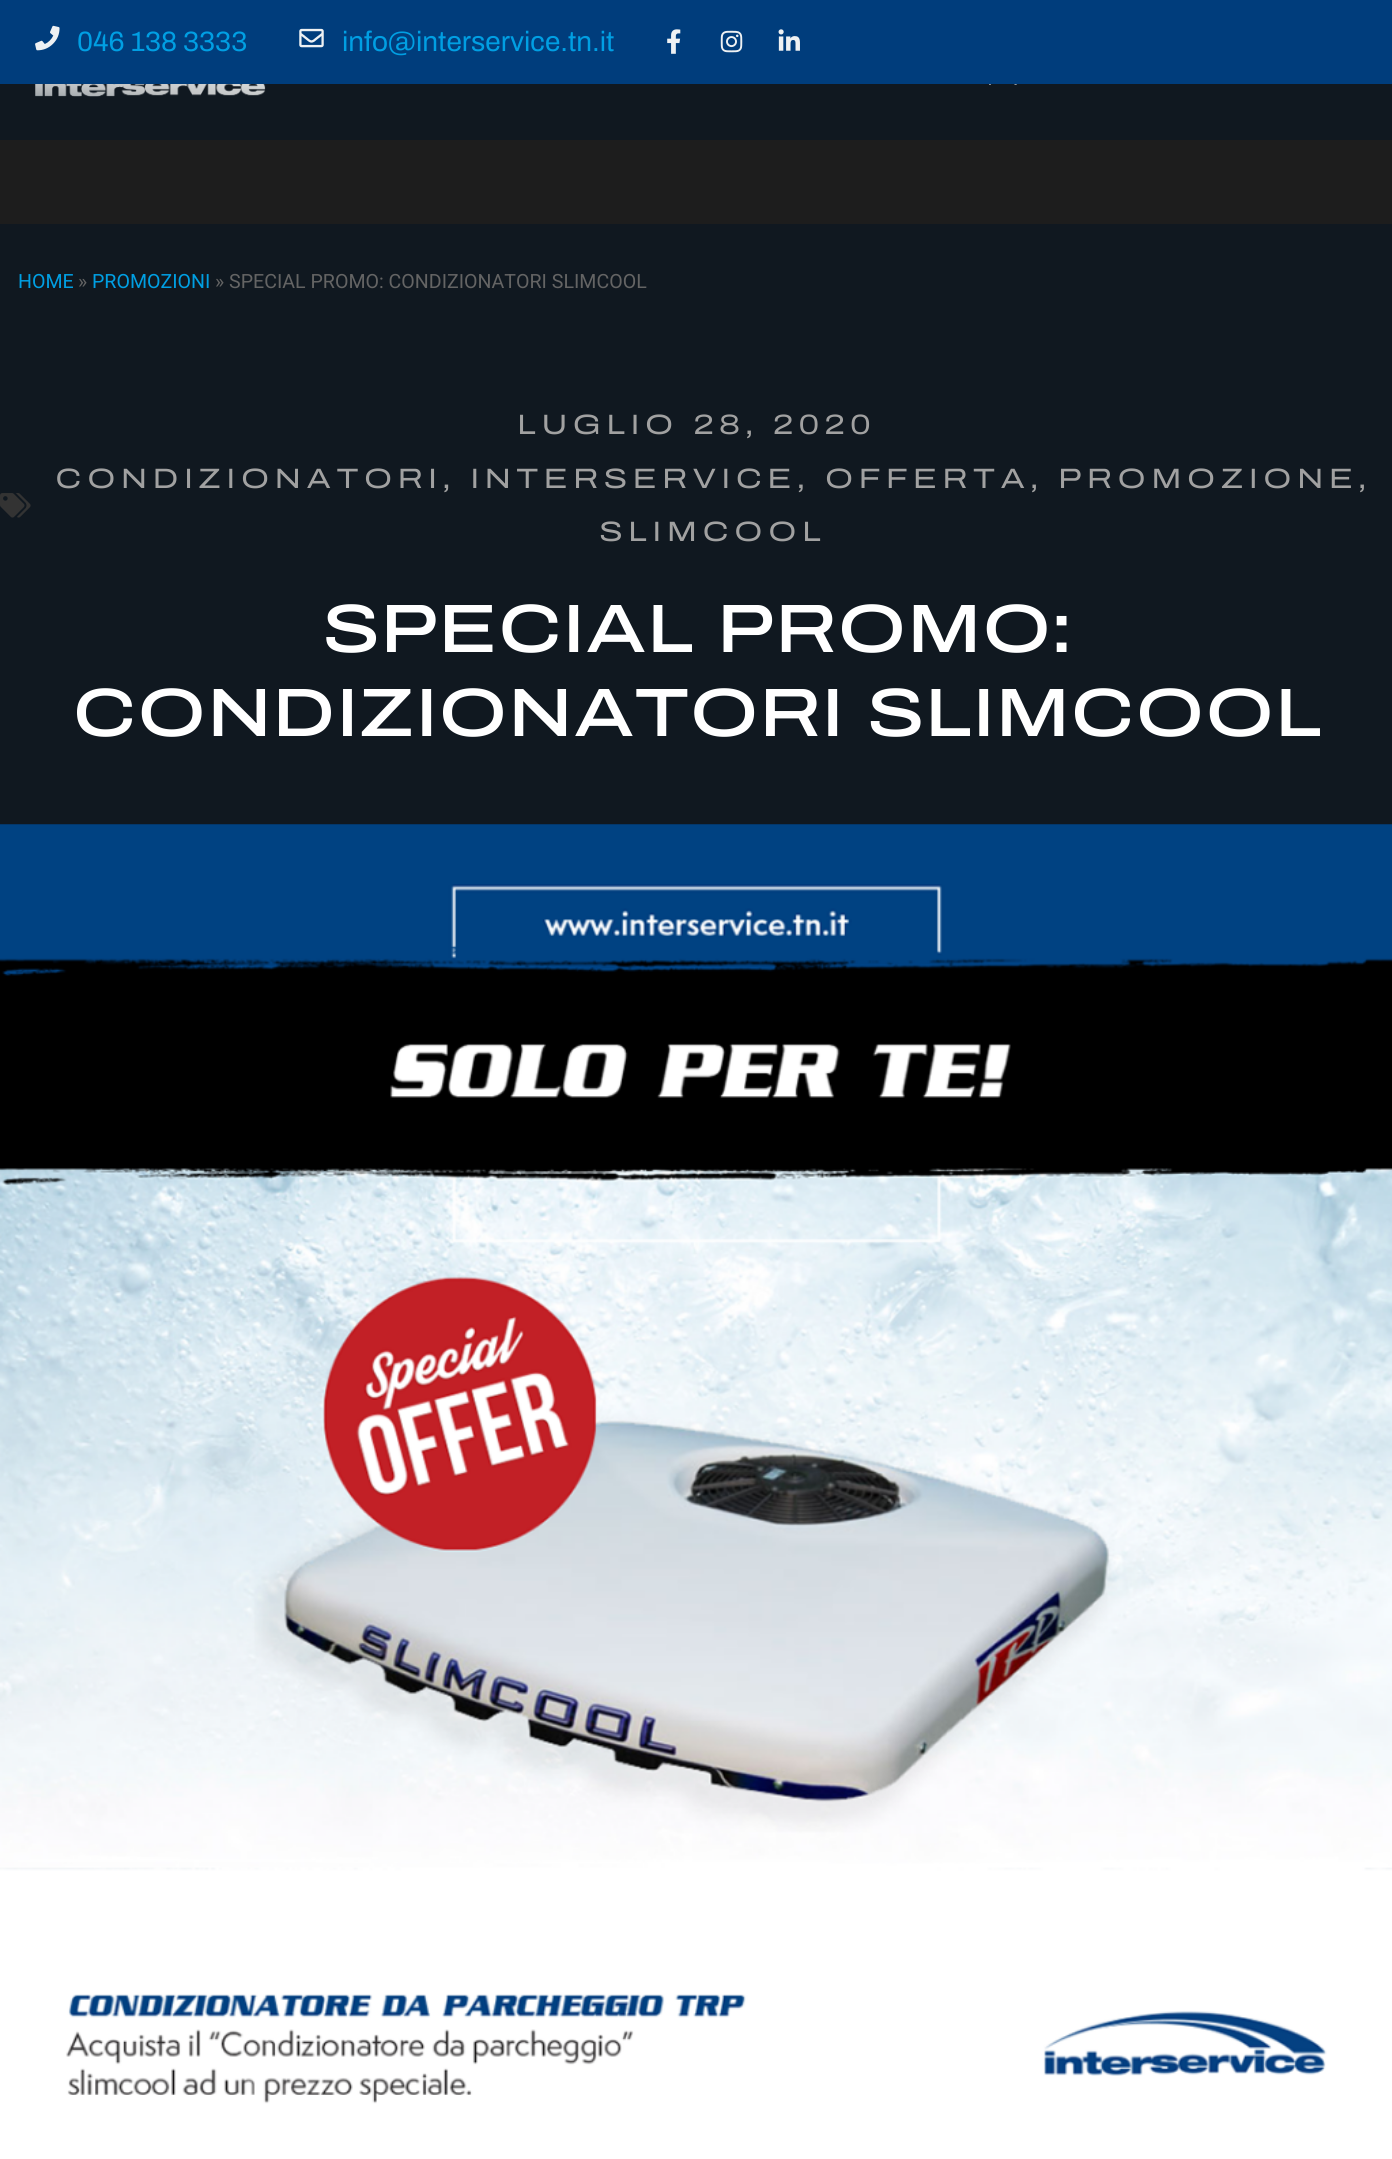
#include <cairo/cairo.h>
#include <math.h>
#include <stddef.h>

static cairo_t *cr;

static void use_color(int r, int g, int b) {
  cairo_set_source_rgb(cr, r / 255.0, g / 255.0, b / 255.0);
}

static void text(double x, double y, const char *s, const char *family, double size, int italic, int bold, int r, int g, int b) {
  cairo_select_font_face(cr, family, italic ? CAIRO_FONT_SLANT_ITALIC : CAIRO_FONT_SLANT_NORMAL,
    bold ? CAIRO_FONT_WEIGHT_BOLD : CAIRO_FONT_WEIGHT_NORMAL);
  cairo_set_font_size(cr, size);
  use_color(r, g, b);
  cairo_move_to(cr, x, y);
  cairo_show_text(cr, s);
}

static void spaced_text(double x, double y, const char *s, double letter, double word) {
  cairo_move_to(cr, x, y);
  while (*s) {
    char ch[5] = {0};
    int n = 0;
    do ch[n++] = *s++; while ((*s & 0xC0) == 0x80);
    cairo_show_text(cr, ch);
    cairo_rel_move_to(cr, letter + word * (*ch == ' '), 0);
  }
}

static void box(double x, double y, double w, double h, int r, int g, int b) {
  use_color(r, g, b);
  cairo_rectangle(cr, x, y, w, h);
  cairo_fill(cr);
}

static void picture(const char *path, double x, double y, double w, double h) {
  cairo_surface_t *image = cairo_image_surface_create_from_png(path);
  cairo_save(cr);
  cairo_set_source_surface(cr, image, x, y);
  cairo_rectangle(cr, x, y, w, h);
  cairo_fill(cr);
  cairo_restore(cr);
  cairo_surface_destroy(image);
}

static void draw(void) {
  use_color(29, 29, 29);
  cairo_paint(cr);
  box(0, 0, 1392, 84, 0, 61, 124);
  picture("img_01.png", 35, 25, 25, 26);
  picture("img_02.png", 299, 28, 25, 20);
  picture("img_03.png", 667, 29, 14, 25);
  picture("img_04.png", 720, 30, 23, 23);
  picture("img_05.png", 778, 29, 22, 22);
  box(0, 84, 1392, 56, 16, 24, 32);
  picture("img_06.png", 35, 84, 231, 13);
  picture("img_07.png", 989, 84, 28, 1);
  box(0, 224, 1392, 601, 16, 24, 32);
  picture("img_08.png", 0, 493, 31, 25);
  picture("img_09.png", 0, 824, 1392, 1335);
  text(77, 51, "046 138 3333", "Archivo", 28, 0, 0, 0, 159, 227);
  text(342, 51, "info@interservice.tn.it", "Archivo", 28, 0, 0, 0, 159, 227);
  text(18, 288, "HOME", "Roboto", 19.6, 0, 0, 0, 159, 227);
  text(78, 288, "»", "Roboto", 19.6, 0, 0, 100, 100, 100);
  text(92, 288, "PROMOZIONI", "Roboto", 19.6, 0, 0, 0, 159, 227);
  text(215, 288, "» SPECIAL PROMO: CONDIZIONATORI SLIMCOOL", "Roboto", 19.6, 0, 0, 100, 100, 100);
  cairo_select_font_face(cr, "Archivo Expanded", CAIRO_FONT_SLANT_NORMAL, CAIRO_FONT_WEIGHT_NORMAL);
  cairo_set_font_size(cr, 28);
  use_color(161, 161, 161);
  spaced_text(517, 434, "LUGLIO 28, 2020", 5.25, 0);
  spaced_text(55, 488, "CONDIZIONATORI, INTERSERVICE, OFFERTA, PROMOZIONE,", 5.25, 0);
  spaced_text(599, 541, "SLIMCOOL", 5.25, 0);
  text(322, 652, "SPECIAL PROMO:", "Archivo Expanded Medium", 68.4, 0, 0, 255, 255, 255);
  text(72, 736, "CONDIZIONATORI SLIMCOOL", "Archivo Expanded Medium", 68.4, 0, 0, 255, 255, 255);
}

int main(void) {
  cairo_surface_t *surface = cairo_image_surface_create(CAIRO_FORMAT_RGB24, 1392, 2159);
  cr = cairo_create(surface);
  cairo_font_options_t *options = cairo_font_options_create();
  cairo_font_options_set_hint_metrics(options, CAIRO_HINT_METRICS_OFF);
  cairo_font_options_set_hint_style(options, CAIRO_HINT_STYLE_NONE);
  cairo_set_font_options(cr, options);
  cairo_set_miter_limit(cr, 4);
  draw();
  cairo_surface_write_to_png(surface, "out.png");
  cairo_font_options_destroy(options);
  cairo_destroy(cr);
  cairo_surface_destroy(surface);
  return 0;
}
